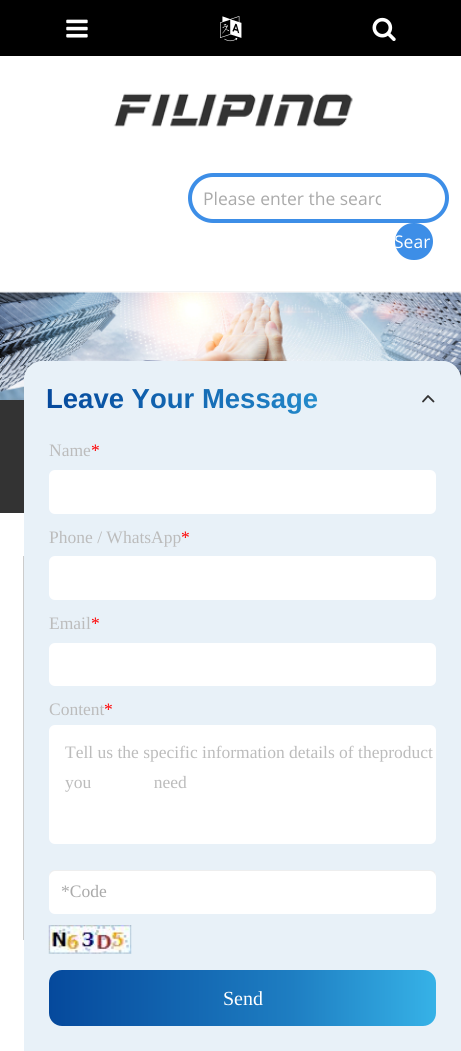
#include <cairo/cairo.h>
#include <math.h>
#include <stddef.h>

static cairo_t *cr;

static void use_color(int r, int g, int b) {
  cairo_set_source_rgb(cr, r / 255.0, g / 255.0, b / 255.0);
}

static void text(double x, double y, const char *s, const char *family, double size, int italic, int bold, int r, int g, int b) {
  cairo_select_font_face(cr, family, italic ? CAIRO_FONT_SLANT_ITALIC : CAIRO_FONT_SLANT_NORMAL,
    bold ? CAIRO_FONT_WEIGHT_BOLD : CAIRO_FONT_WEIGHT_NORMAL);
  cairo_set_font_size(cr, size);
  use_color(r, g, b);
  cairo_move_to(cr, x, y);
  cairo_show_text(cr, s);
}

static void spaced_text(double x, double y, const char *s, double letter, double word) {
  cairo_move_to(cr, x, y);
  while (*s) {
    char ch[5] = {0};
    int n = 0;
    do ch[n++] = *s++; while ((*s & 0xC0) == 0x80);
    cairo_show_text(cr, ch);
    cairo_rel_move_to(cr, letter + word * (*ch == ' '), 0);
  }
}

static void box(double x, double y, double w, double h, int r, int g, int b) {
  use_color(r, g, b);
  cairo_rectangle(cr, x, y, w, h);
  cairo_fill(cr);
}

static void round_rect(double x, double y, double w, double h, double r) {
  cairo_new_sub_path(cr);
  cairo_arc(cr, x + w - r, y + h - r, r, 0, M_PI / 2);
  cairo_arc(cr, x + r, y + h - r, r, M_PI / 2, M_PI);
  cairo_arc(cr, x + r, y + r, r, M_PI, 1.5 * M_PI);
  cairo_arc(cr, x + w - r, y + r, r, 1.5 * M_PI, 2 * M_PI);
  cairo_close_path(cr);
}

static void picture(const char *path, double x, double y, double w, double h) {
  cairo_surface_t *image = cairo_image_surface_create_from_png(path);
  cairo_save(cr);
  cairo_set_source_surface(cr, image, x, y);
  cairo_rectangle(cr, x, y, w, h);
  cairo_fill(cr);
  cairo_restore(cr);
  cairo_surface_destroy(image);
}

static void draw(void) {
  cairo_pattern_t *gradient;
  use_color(255, 255, 255);
  cairo_paint(cr);
  box(0, 0, 461, 56, 0, 0, 0);
  picture("img_01.png", 66, 19, 22, 19);
  picture("img_02.png", 220, 16, 22, 26);
  picture("img_03.png", 372, 17, 24, 24);
  picture("img_04.png", 113, 93, 240, 34);
  round_rect(190, 175, 257, 46, 23);
  use_color(61, 142, 231);
  cairo_set_line_width(cr, 4);
  cairo_stroke(cr);
  round_rect(395, 223, 38, 37, 18.5);
  cairo_fill(cr);
  box(0, 291, 461, 1, 244, 244, 244);
  picture("img_05.png", 0, 292, 461, 108);
  box(0, 400, 24, 113, 51, 51, 51);
  cairo_rectangle(cr, 23.5, 556.5, 415, 383);
  use_color(204, 204, 204);
  cairo_set_line_width(cr, 1);
  cairo_stroke(cr);
  use_color(232, 241, 248);
  cairo_new_path(cr);
  cairo_move_to(cr, 43, 361);
  cairo_line_to(cr, 442, 361);
  cairo_curve_to(cr, 452.5, 361, 461, 369.5, 461, 380);
  cairo_line_to(cr, 461, 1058);
  cairo_line_to(cr, 24, 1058);
  cairo_line_to(cr, 24, 380);
  cairo_curve_to(cr, 24, 369.5, 32.5, 361, 43, 361);
  cairo_close_path(cr);
  cairo_fill(cr);
  cairo_new_path(cr);
  cairo_move_to(cr, 43, 361);
  cairo_line_to(cr, 442, 361);
  cairo_curve_to(cr, 452.5, 361, 461, 369.5, 461, 380);
  cairo_line_to(cr, 461, 436);
  cairo_line_to(cr, 24, 436);
  cairo_line_to(cr, 24, 380);
  cairo_curve_to(cr, 24, 369.5, 32.5, 361, 43, 361);
  cairo_close_path(cr);
  cairo_fill(cr);
  cairo_new_path(cr);
  cairo_move_to(cr, 433.5, 401.5);
  cairo_line_to(cr, 428, 396);
  cairo_line_to(cr, 423, 401.5);
  use_color(51, 51, 51);
  cairo_set_line_width(cr, 1.8);
  cairo_set_line_cap(cr, CAIRO_LINE_CAP_ROUND);
  cairo_set_line_join(cr, CAIRO_LINE_JOIN_ROUND);
  cairo_stroke(cr);
  use_color(255, 255, 255);
  round_rect(49, 470, 387, 44, 6);
  cairo_fill(cr);
  round_rect(49, 556, 387, 44, 6);
  cairo_fill(cr);
  round_rect(49, 643, 387, 43, 6);
  cairo_fill(cr);
  round_rect(49, 725, 387, 119, 6);
  cairo_fill(cr);
  round_rect(49, 870, 387, 44, 6);
  cairo_fill(cr);
  cairo_set_source_rgba(cr, 0, 0, 0, 0.07);
  cairo_new_path(cr);
  cairo_move_to(cr, 55, 871);
  cairo_line_to(cr, 430, 871);
  cairo_curve_to(cr, 433, 871, 436, 874, 436, 878);
  cairo_curve_to(cr, 436, 874, 435, 870, 430, 870);
  cairo_line_to(cr, 55, 870);
  cairo_curve_to(cr, 50, 870, 49, 874, 49, 878);
  cairo_curve_to(cr, 49, 874, 52, 871, 55, 871);
  cairo_close_path(cr);
  cairo_fill(cr);
  picture("img_06.png", 48, 925, 84, 29);
  gradient = cairo_pattern_create_linear(49, 998, 436, 998);
  cairo_pattern_add_color_stop_rgba(gradient, 0, 0.02, 0.286, 0.612, 1);
  cairo_pattern_add_color_stop_rgba(gradient, 0.63, 0.118, 0.494, 0.761, 1);
  cairo_pattern_add_color_stop_rgba(gradient, 1, 0.212, 0.698, 0.906, 1);
  cairo_set_source(cr, gradient);
  cairo_pattern_destroy(gradient);
  round_rect(49, 970, 387, 56, 13);
  cairo_fill(cr);
  cairo_save(cr);
  cairo_rectangle(cr, 204, 186, 177, 24);
  cairo_clip(cr);
  text(203, 205, "Please enter the searc", "Open Sans", 17.5, 0, 0, 170, 170, 170);
  cairo_restore(cr);
  cairo_save(cr);
  round_rect(395, 223, 38, 37, 18.5);
  cairo_clip(cr);
  text(394, 248, "Sear", "Open Sans", 17.5, 0, 0, 255, 255, 255);
  cairo_restore(cr);
  cairo_select_font_face(cr, "Liberation Sans", CAIRO_FONT_SLANT_NORMAL, CAIRO_FONT_WEIGHT_BOLD);
  cairo_set_font_size(cr, 27.5);
  gradient = cairo_pattern_create_linear(46, 399, 417, 399);
  cairo_pattern_add_color_stop_rgba(gradient, 0, 0.02, 0.286, 0.612, 1);
  cairo_pattern_add_color_stop_rgba(gradient, 0.63, 0.118, 0.494, 0.761, 1);
  cairo_pattern_add_color_stop_rgba(gradient, 1, 0.212, 0.698, 0.906, 1);
  cairo_set_source(cr, gradient);
  cairo_pattern_destroy(gradient);
  cairo_move_to(cr, 46, 408);
  cairo_show_text(cr, "Leave Your Message");
  text(49, 456, "Name", "Liberation Serif", 17.5, 0, 0, 188, 188, 188);
  text(91, 456, "*", "Liberation Serif", 17.5, 0, 0, 255, 0, 0);
  text(49, 543, "Phone / WhatsApp", "Liberation Serif", 17.5, 0, 0, 188, 188, 188);
  text(181, 543, "*", "Liberation Serif", 17.5, 0, 0, 255, 0, 0);
  text(49, 629, "Email", "Liberation Serif", 17.5, 0, 0, 188, 188, 188);
  text(91, 629, "*", "Liberation Serif", 17.5, 0, 0, 255, 0, 0);
  text(49, 715, "Content", "Liberation Serif", 17.5, 0, 0, 188, 188, 188);
  text(104, 715, "*", "Liberation Serif", 17.5, 0, 0, 255, 0, 0);
  text(65, 758, "Tell us the specific information details of theproduct", "Liberation Serif", 17.5, 0, 0, 188, 188, 188);
  spaced_text(65, 788, "you need", 0, 58);
  text(61, 897, "*Code", "Liberation Serif", 17.5, 0, 0, 170, 170, 170);
  text(223, 1005, "Send", "Liberation Serif", 20, 0, 0, 255, 255, 255);
}

int main(void) {
  cairo_surface_t *surface = cairo_image_surface_create(CAIRO_FORMAT_RGB24, 461, 1051);
  cr = cairo_create(surface);
  cairo_font_options_t *options = cairo_font_options_create();
  cairo_font_options_set_hint_metrics(options, CAIRO_HINT_METRICS_OFF);
  cairo_font_options_set_hint_style(options, CAIRO_HINT_STYLE_NONE);
  cairo_set_font_options(cr, options);
  cairo_set_miter_limit(cr, 4);
  draw();
  cairo_surface_write_to_png(surface, "out.png");
  cairo_font_options_destroy(options);
  cairo_destroy(cr);
  cairo_surface_destroy(surface);
  return 0;
}
